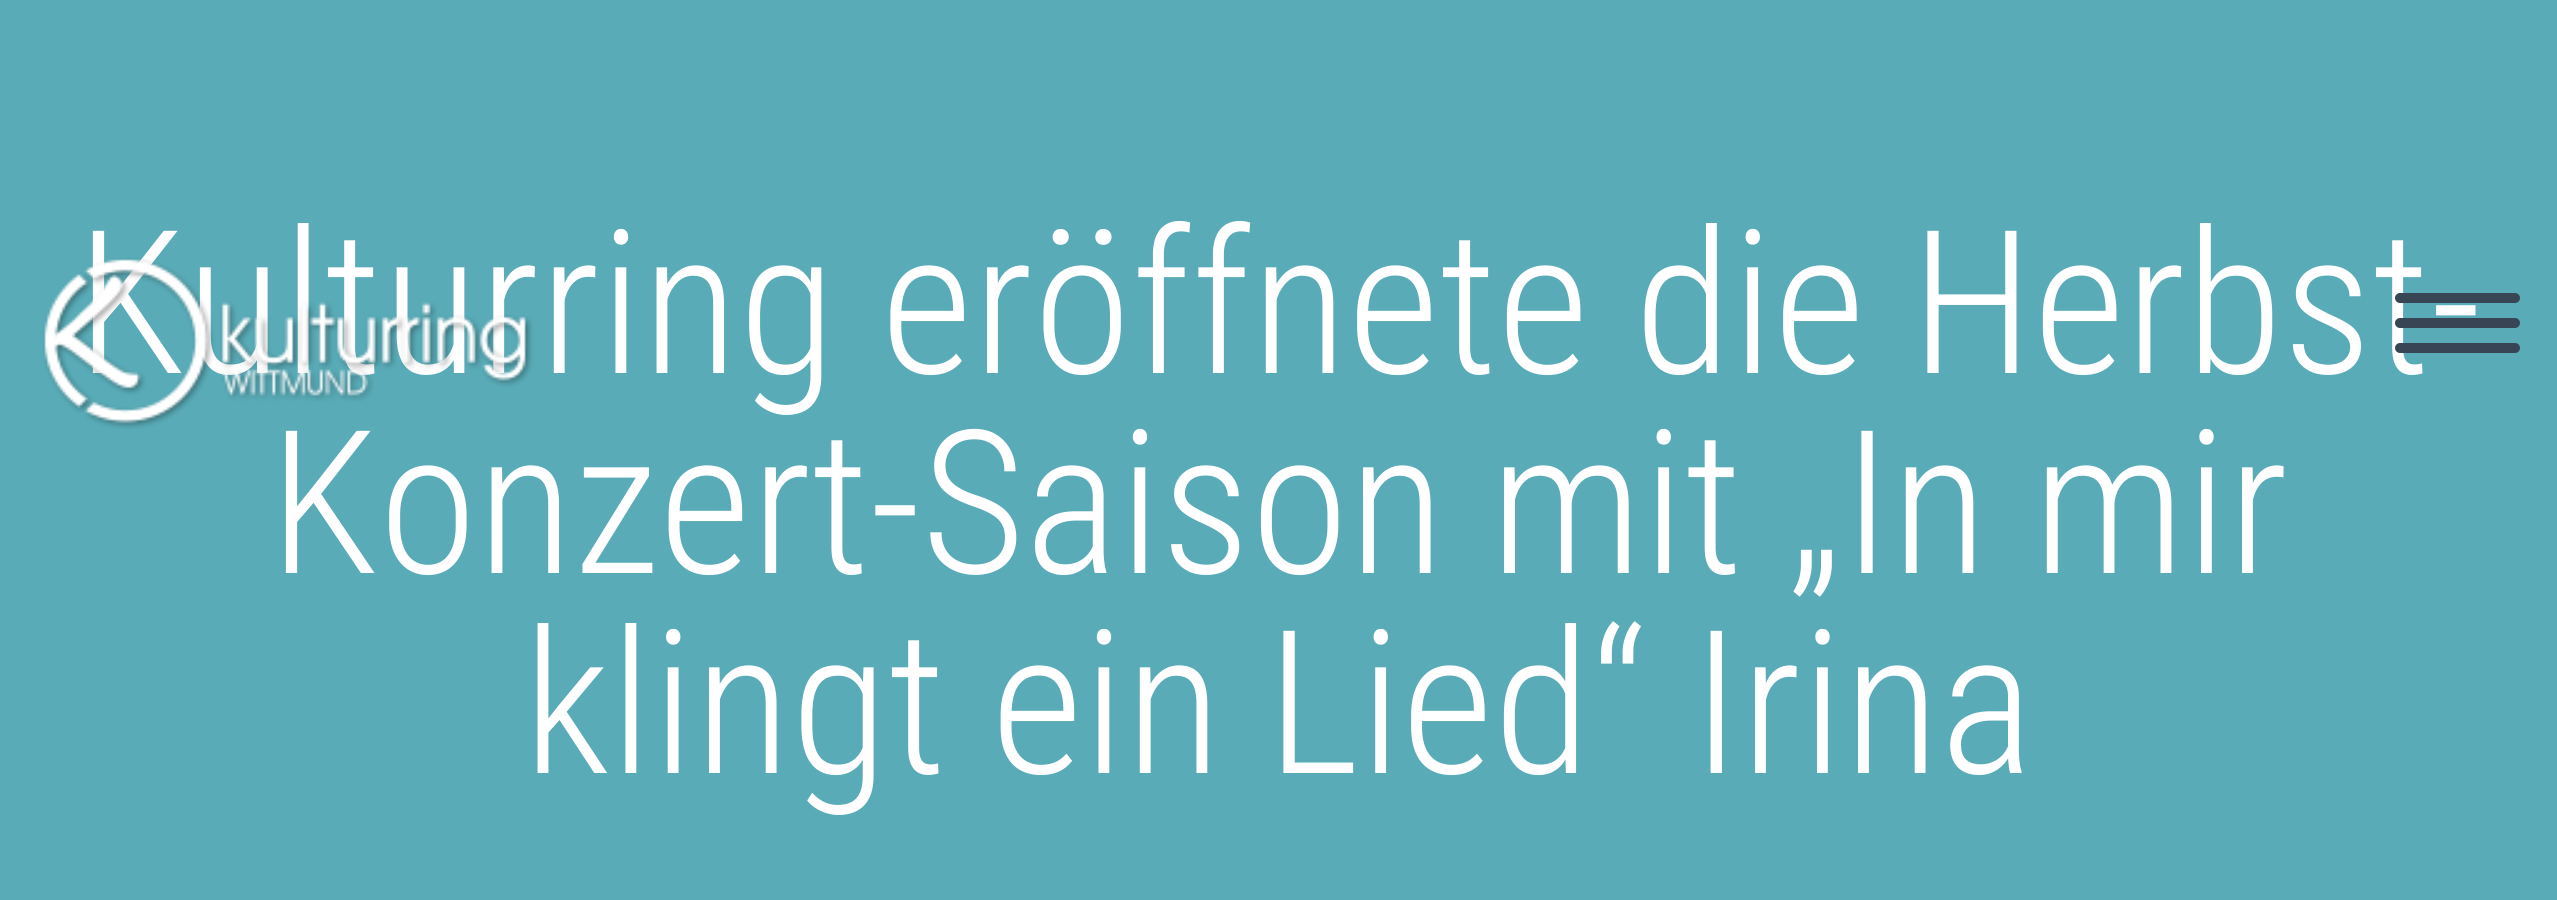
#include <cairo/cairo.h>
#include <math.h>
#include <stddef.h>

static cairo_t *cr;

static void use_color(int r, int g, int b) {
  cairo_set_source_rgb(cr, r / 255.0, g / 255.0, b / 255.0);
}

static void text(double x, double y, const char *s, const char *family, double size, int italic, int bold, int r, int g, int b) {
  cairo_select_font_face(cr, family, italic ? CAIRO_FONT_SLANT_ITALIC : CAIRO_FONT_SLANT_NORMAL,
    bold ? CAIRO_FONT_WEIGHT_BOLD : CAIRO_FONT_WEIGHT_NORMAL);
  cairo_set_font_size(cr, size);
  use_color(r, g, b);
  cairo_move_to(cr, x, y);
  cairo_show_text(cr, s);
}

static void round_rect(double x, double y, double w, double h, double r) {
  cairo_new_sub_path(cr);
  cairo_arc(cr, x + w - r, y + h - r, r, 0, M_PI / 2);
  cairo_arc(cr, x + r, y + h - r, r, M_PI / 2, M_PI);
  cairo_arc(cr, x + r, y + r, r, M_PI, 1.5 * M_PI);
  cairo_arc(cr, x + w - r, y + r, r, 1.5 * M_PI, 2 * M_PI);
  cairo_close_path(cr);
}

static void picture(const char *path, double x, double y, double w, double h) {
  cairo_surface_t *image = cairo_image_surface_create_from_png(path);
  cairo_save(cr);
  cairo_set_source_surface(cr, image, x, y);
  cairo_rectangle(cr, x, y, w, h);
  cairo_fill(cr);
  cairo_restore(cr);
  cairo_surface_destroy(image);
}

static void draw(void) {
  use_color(88, 171, 183);
  cairo_paint(cr);
  text(76, 373, "Kulturring eröffnete die Herbst-", "Roboto Condensed Light", 200, 0, 0, 255, 255, 255);
  text(269, 573, "Konzert-Saison mit „In mir", "Roboto Condensed Light", 200, 0, 0, 255, 255, 255);
  text(523, 773, "klingt ein Lied“ Irina", "Roboto Condensed Light", 200, 0, 0, 255, 255, 255);
  picture("img_01.png", 43, 258, 490, 171);
  use_color(56, 69, 84);
  round_rect(2395, 343, 125, 10, 5);
  cairo_fill(cr);
  round_rect(2395, 318, 125, 10, 5);
  cairo_fill(cr);
  round_rect(2395, 293, 125, 10, 5);
  cairo_fill(cr);
}

int main(void) {
  cairo_surface_t *surface = cairo_image_surface_create(CAIRO_FORMAT_RGB24, 2557, 900);
  cr = cairo_create(surface);
  cairo_font_options_t *options = cairo_font_options_create();
  cairo_font_options_set_hint_metrics(options, CAIRO_HINT_METRICS_OFF);
  cairo_font_options_set_hint_style(options, CAIRO_HINT_STYLE_NONE);
  cairo_set_font_options(cr, options);
  cairo_set_miter_limit(cr, 4);
  draw();
  cairo_surface_write_to_png(surface, "out.png");
  cairo_font_options_destroy(options);
  cairo_destroy(cr);
  cairo_surface_destroy(surface);
  return 0;
}
